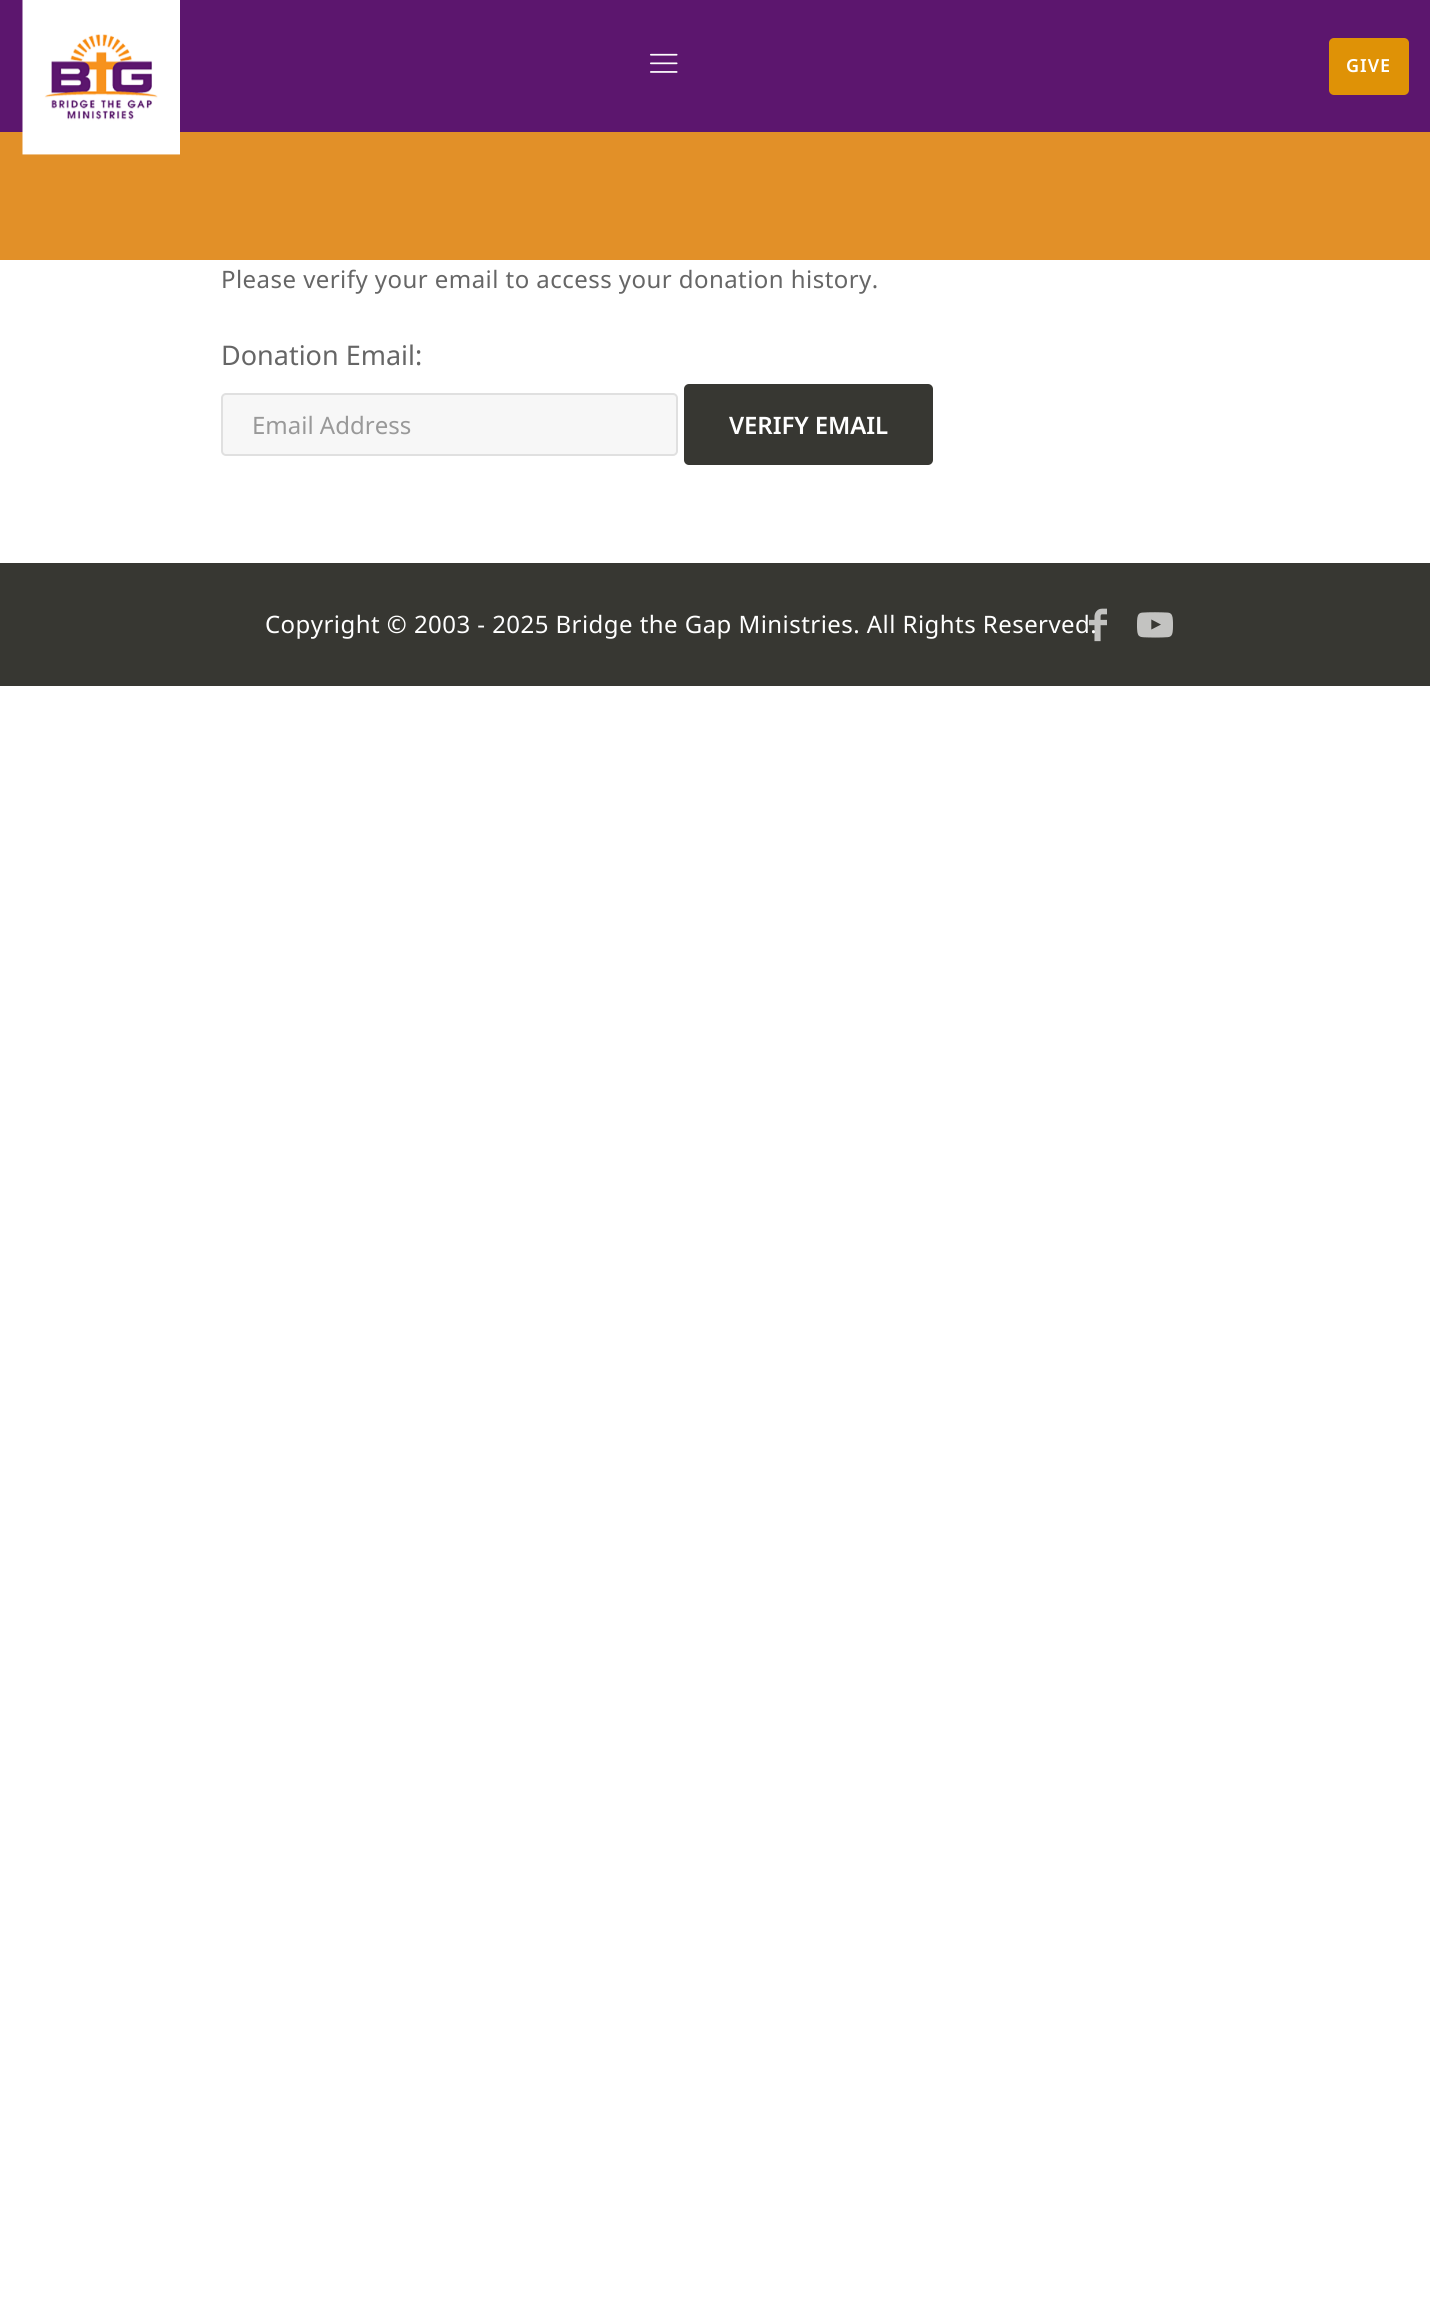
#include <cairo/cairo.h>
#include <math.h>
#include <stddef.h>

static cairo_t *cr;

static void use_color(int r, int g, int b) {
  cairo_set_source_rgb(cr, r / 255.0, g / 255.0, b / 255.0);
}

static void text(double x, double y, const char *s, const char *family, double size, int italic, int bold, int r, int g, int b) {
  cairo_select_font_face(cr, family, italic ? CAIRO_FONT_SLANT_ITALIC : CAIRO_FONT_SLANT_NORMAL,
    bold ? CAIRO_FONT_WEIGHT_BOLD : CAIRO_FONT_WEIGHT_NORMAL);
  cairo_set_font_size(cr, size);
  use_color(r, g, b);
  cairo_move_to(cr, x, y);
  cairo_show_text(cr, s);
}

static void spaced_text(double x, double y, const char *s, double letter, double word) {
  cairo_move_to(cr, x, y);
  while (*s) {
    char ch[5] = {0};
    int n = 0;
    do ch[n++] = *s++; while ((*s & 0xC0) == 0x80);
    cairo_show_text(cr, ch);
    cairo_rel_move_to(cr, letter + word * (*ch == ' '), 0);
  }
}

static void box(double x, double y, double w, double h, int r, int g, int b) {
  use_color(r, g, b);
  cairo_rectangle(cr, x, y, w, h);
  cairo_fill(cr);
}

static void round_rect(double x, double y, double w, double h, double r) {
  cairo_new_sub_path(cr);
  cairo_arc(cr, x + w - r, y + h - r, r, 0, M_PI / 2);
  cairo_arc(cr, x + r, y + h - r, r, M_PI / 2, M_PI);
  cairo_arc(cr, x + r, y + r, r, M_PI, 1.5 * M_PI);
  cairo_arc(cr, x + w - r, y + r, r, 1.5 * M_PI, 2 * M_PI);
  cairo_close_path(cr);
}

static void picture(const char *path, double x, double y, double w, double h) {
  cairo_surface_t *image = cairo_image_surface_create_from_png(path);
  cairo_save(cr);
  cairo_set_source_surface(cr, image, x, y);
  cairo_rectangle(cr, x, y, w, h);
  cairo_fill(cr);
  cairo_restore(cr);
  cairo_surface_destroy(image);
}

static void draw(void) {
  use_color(255, 255, 255);
  cairo_paint(cr);
  box(0, 0, 1430, 132, 92, 22, 110);
  box(0, 132, 1430, 128, 226, 144, 40);
  picture("img_01.png", 22, 0, 158, 155);
  picture("img_02.png", 650, 53, 28, 20);
  use_color(223, 146, 6);
  round_rect(1329, 38, 80, 57, 5);
  cairo_fill(cr);
  use_color(247, 247, 247);
  round_rect(222, 394, 455, 61, 4);
  cairo_fill_preserve(cr);
  use_color(224, 224, 224);
  cairo_stroke(cr);
  use_color(55, 55, 50);
  round_rect(684, 384, 249, 81, 5);
  cairo_fill(cr);
  box(0, 563, 1430, 123, 55, 55, 50);
  picture("img_04.png", 1137, 612, 36, 26);
  cairo_select_font_face(cr, "Noto Sans SemiBold", CAIRO_FONT_SLANT_NORMAL, CAIRO_FONT_WEIGHT_NORMAL);
  cairo_set_font_size(cr, 18);
  use_color(255, 255, 255);
  spaced_text(1346, 72, "GIVE", 1, 0);
  cairo_select_font_face(cr, "Noto Sans", CAIRO_FONT_SLANT_NORMAL, CAIRO_FONT_WEIGHT_NORMAL);
  cairo_set_font_size(cr, 24);
  use_color(102, 102, 102);
  spaced_text(221, 288, "Please verify your email to access your donation history.", 0.45, 0);
  text(221, 365, "Donation Email:", "Noto Sans", 27, 0, 0, 102, 102, 102);
  text(252, 434, "Email Address", "Noto Sans", 24, 0, 0, 153, 153, 153);
  cairo_select_font_face(cr, "Noto Sans SemiBold", CAIRO_FONT_SLANT_NORMAL, CAIRO_FONT_WEIGHT_NORMAL);
  use_color(255, 255, 255);
  spaced_text(729, 434, "VERIFY EMAIL", -0.1, 0);
  cairo_select_font_face(cr, "Noto Sans", CAIRO_FONT_SLANT_NORMAL, CAIRO_FONT_WEIGHT_NORMAL);
  spaced_text(265, 633, "Copyright © 2003 - 2025 Bridge the Gap Ministries. All Rights Reserved.", 0.45, 0);
  picture("img_03.png", 1089, 608, 18, 34);
}

int main(void) {
  cairo_surface_t *surface = cairo_image_surface_create(CAIRO_FORMAT_RGB24, 1430, 2314);
  cr = cairo_create(surface);
  cairo_font_options_t *options = cairo_font_options_create();
  cairo_font_options_set_hint_metrics(options, CAIRO_HINT_METRICS_OFF);
  cairo_font_options_set_hint_style(options, CAIRO_HINT_STYLE_NONE);
  cairo_set_font_options(cr, options);
  cairo_set_miter_limit(cr, 4);
  draw();
  cairo_surface_write_to_png(surface, "out.png");
  cairo_font_options_destroy(options);
  cairo_destroy(cr);
  cairo_surface_destroy(surface);
  return 0;
}
